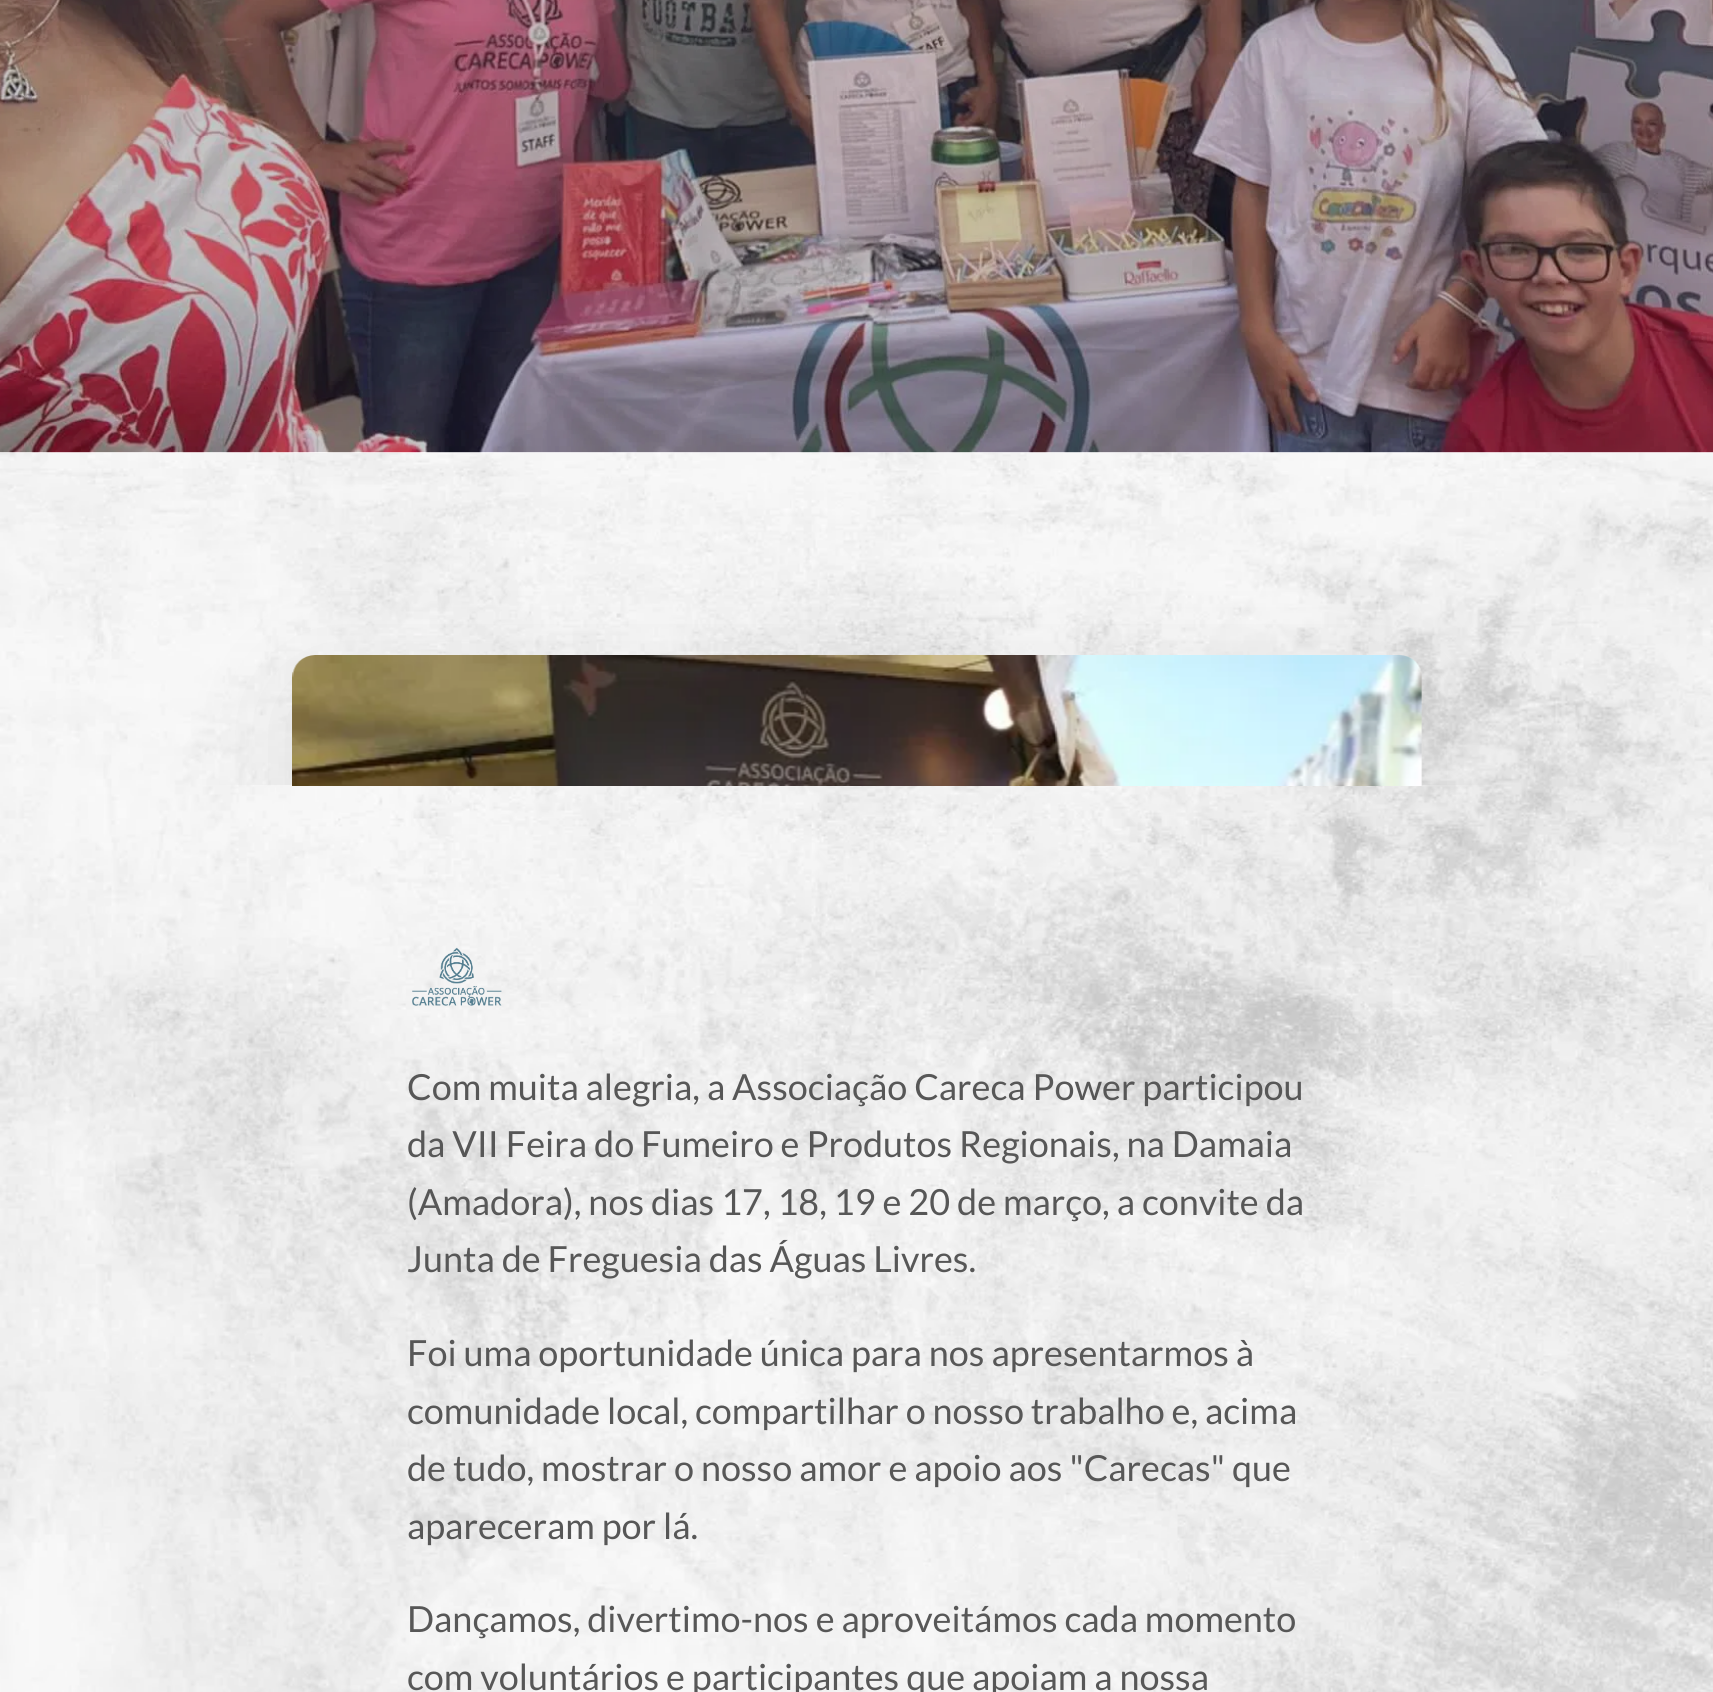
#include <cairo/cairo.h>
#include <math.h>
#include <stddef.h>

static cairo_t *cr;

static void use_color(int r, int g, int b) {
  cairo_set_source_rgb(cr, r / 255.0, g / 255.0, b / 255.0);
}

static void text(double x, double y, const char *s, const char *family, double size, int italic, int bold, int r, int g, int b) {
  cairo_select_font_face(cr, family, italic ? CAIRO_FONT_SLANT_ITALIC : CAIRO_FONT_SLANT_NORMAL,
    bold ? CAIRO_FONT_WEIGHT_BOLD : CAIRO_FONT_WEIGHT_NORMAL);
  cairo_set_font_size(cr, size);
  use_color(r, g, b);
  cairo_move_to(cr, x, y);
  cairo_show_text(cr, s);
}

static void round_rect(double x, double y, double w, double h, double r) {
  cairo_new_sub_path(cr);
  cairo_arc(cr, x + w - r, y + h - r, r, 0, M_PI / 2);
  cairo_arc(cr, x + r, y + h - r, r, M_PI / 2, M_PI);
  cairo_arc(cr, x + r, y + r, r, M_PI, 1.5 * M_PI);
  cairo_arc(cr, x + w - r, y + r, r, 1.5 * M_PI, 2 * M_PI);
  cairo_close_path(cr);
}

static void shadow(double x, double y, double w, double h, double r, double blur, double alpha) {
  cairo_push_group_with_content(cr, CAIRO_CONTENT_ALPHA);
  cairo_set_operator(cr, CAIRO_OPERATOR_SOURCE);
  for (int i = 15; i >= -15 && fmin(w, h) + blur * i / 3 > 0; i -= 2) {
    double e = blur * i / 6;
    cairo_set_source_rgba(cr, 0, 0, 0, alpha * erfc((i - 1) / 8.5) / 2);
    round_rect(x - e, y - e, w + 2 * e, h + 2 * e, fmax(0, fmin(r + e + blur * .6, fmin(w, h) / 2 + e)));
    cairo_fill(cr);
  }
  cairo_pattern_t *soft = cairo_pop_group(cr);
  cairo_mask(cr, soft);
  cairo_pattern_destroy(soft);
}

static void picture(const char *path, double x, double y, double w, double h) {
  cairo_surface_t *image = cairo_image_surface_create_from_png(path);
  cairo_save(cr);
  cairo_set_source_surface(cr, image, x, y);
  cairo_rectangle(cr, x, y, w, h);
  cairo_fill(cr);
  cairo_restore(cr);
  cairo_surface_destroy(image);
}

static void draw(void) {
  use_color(255, 255, 255);
  cairo_paint(cr);
  picture("img_01.png", 0, 0, 1713, 453);
  picture("img_02.png", 0, 452, 1713, 1240);
  cairo_set_source_rgba(cr, 0.965, 0.965, 0.965, 0.3);
  cairo_rectangle(cr, 0, 452, 1713, 1240);
  cairo_fill(cr);
  picture("img_04.png", 412, 947, 90, 59);
  cairo_save(cr);
  cairo_rectangle(cr, 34, 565, 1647, 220);
  cairo_clip(cr);
  use_color(0, 0, 0);
  shadow(293, 682, 1129, 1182, 23, 49.5, 0.1);
  cairo_restore(cr);
  picture("img_03.png", 292, 655, 1130, 131);
  text(407, 1100, "Com muita alegria, a Associação Careca Power participou", "Lato", 36, 0, 0, 87, 87, 87);
  text(407, 1157, "da VII Feira do Fumeiro e Produtos Regionais, na Damaia", "Lato", 36, 0, 0, 87, 87, 87);
  text(407, 1215, "(Amadora), nos dias 17, 18, 19 e 20 de março, a convite da", "Lato", 36, 0, 0, 87, 87, 87);
  text(407, 1272, "Junta de Freguesia das Águas Livres.", "Lato", 36, 0, 0, 87, 87, 87);
  text(407, 1366, "Foi uma oportunidade única para nos apresentarmos à", "Lato", 36, 0, 0, 87, 87, 87);
  text(407, 1424, "comunidade local, compartilhar o nosso trabalho e, acima", "Lato", 36, 0, 0, 87, 87, 87);
  text(407, 1481, "de tudo, mostrar o nosso amor e apoio aos \"Carecas\" que", "Lato", 36, 0, 0, 87, 87, 87);
  text(407, 1539, "apareceram por lá.", "Lato", 36, 0, 0, 87, 87, 87);
  text(407, 1632, "Dançamos, divertimo-nos e aproveitámos cada momento", "Lato", 36, 0, 0, 87, 87, 87);
  text(407, 1690, "com voluntários e participantes que apoiam a nossa", "Lato", 36, 0, 0, 87, 87, 87);
}

int main(void) {
  cairo_surface_t *surface = cairo_image_surface_create(CAIRO_FORMAT_RGB24, 1713, 1692);
  cr = cairo_create(surface);
  cairo_font_options_t *options = cairo_font_options_create();
  cairo_font_options_set_hint_metrics(options, CAIRO_HINT_METRICS_OFF);
  cairo_font_options_set_hint_style(options, CAIRO_HINT_STYLE_NONE);
  cairo_set_font_options(cr, options);
  cairo_set_miter_limit(cr, 4);
  draw();
  cairo_surface_write_to_png(surface, "out.png");
  cairo_font_options_destroy(options);
  cairo_destroy(cr);
  cairo_surface_destroy(surface);
  return 0;
}
